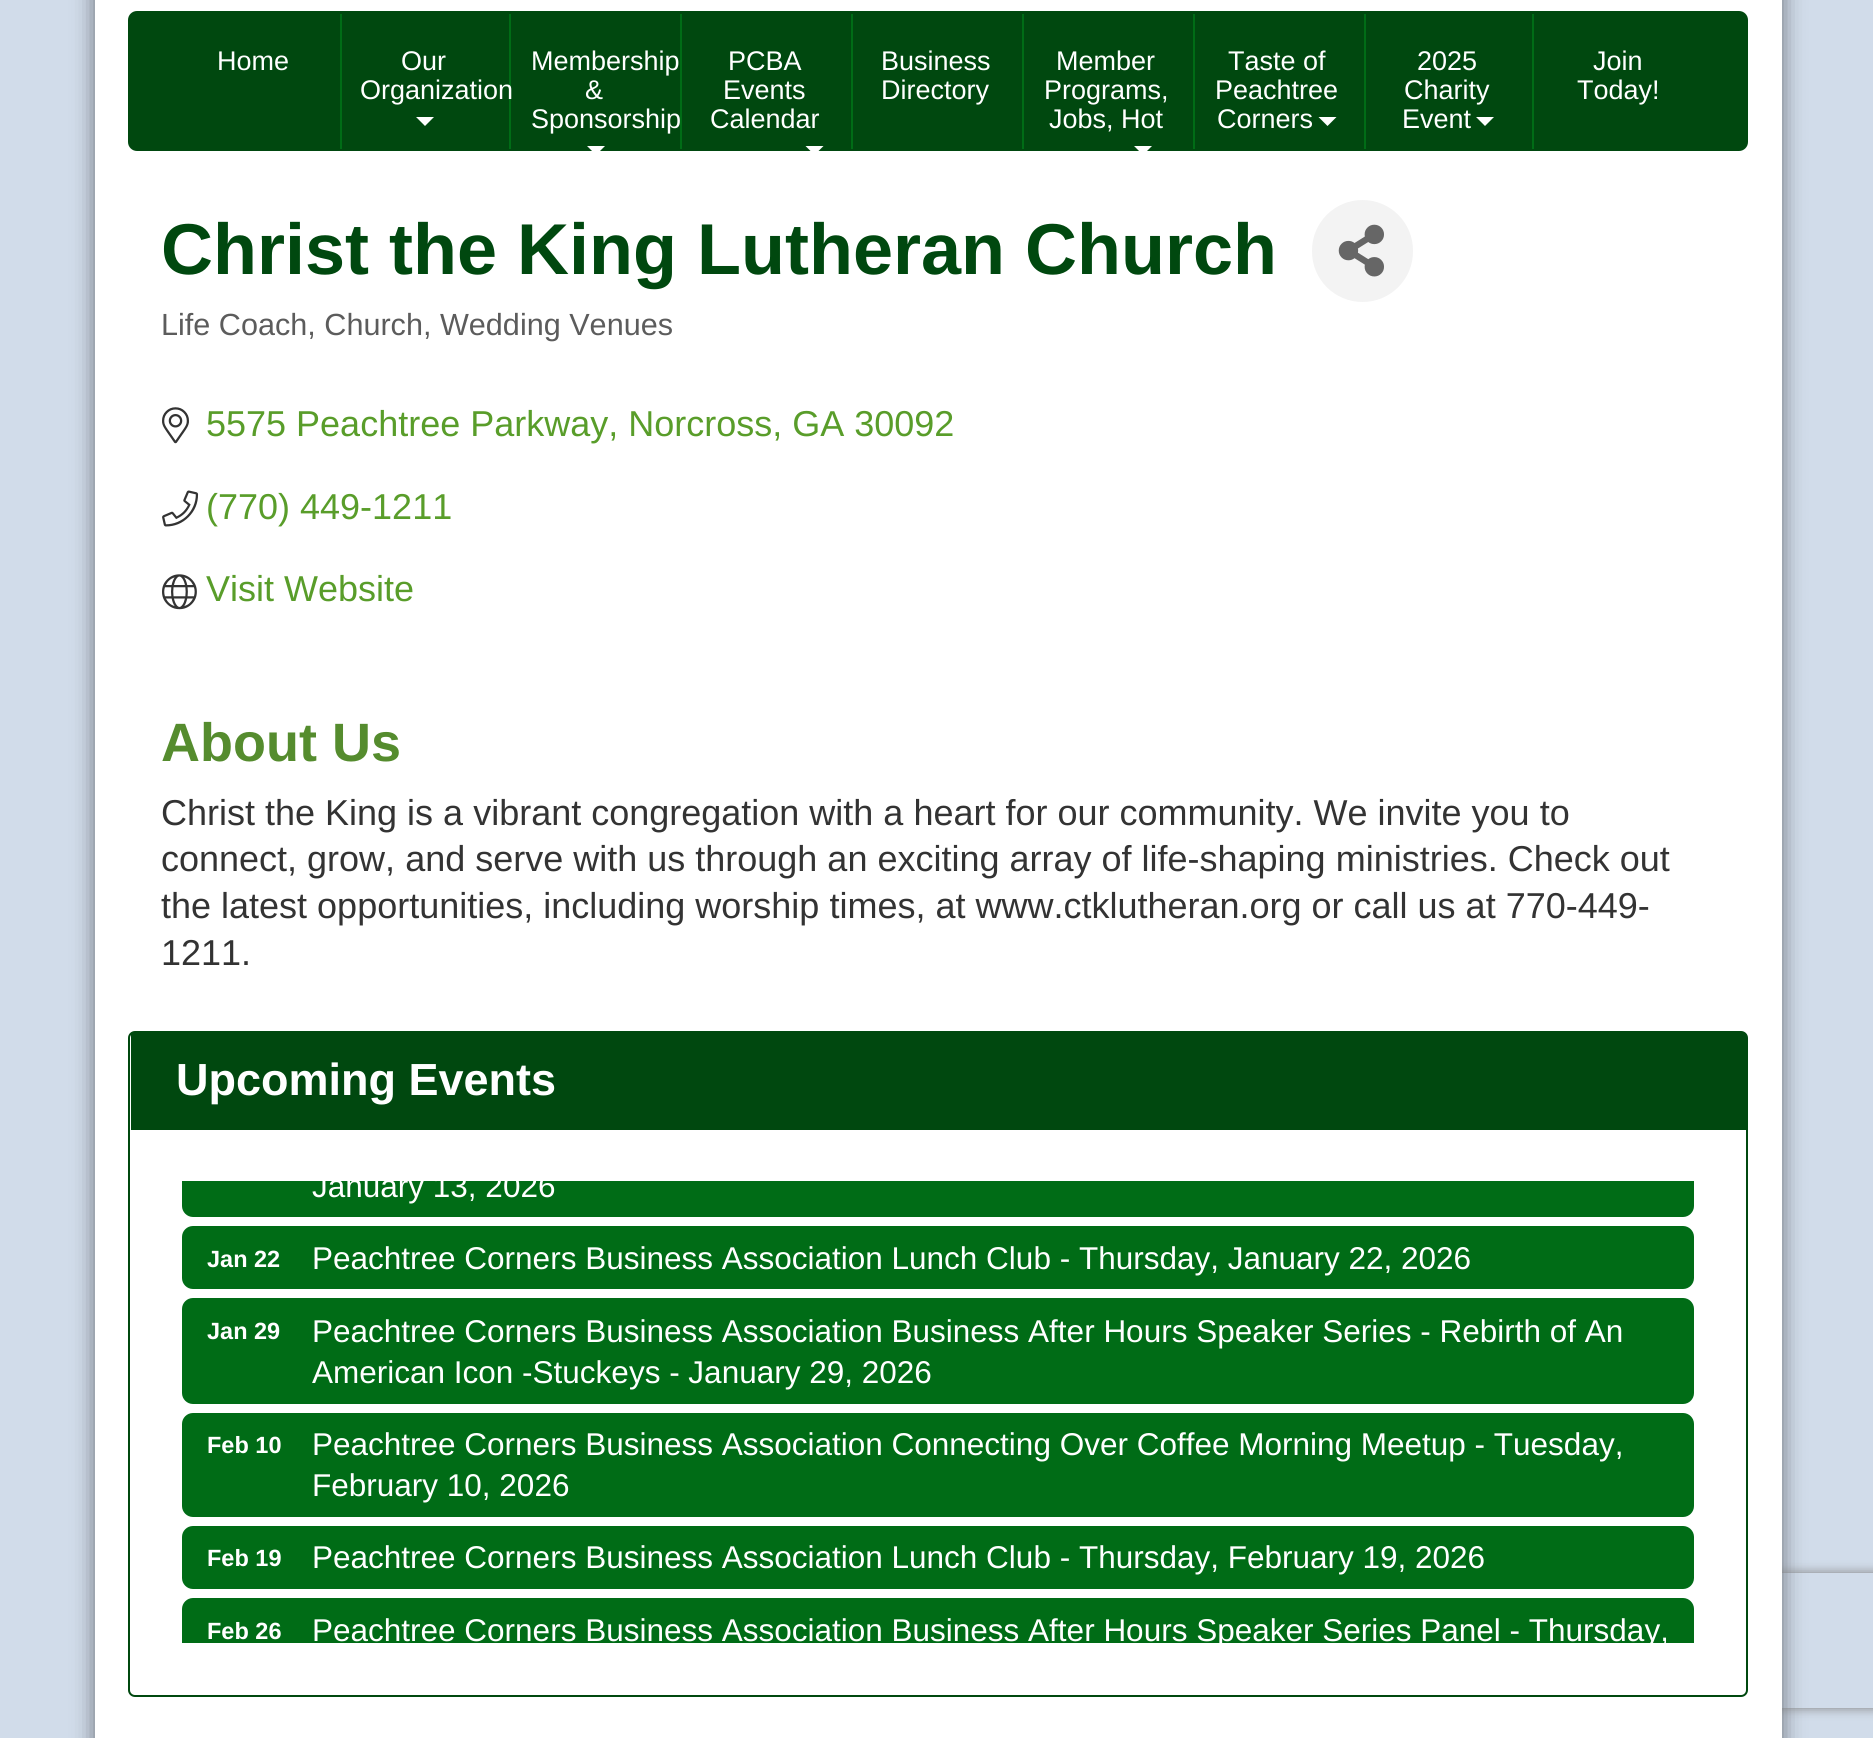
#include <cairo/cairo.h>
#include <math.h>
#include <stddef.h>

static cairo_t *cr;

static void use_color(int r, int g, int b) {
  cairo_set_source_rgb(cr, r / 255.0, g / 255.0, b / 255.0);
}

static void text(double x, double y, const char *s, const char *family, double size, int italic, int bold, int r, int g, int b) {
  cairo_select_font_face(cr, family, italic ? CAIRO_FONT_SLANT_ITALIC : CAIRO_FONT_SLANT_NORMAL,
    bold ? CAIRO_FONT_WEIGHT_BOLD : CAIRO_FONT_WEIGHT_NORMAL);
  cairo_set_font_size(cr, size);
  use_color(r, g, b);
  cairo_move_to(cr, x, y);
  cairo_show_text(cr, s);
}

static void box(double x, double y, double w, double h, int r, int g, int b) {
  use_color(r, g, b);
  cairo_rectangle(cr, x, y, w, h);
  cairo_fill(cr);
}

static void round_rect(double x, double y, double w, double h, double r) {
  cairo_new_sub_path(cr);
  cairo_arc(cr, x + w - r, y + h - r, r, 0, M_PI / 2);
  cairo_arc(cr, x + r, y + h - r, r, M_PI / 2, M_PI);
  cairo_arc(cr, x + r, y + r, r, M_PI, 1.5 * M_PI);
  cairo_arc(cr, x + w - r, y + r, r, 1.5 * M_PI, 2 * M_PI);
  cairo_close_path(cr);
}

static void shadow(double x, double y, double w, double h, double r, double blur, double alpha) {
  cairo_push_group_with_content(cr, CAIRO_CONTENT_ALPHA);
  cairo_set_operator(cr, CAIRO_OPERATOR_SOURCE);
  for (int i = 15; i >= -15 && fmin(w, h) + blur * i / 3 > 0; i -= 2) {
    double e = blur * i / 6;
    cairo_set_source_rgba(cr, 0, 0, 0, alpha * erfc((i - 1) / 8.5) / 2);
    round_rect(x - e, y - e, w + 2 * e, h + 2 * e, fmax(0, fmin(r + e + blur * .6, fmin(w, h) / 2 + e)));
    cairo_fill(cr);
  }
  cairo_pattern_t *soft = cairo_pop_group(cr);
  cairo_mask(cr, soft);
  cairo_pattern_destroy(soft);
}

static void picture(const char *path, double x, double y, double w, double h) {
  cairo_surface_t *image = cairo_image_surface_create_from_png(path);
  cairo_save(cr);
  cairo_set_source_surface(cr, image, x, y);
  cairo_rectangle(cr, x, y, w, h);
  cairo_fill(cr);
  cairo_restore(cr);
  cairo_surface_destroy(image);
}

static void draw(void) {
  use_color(209, 220, 234);
  cairo_paint(cr);
  use_color(0, 0, 0);
  shadow(95, -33, 1687, 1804, 0, 11, 0.5);
  cairo_save(cr);
  cairo_set_fill_rule(cr, CAIRO_FILL_RULE_EVEN_ODD);
  cairo_new_path(cr);
  cairo_move_to(cr, 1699, 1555);
  cairo_line_to(cr, 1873, 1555);
  cairo_line_to(cr, 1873, 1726);
  cairo_line_to(cr, 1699, 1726);
  cairo_close_path(cr);
  cairo_move_to(cr, 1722, 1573);
  cairo_line_to(cr, 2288, 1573);
  cairo_curve_to(cr, 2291, 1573, 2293, 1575, 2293, 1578);
  cairo_line_to(cr, 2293, 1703);
  cairo_curve_to(cr, 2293, 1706, 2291, 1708, 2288, 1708);
  cairo_line_to(cr, 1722, 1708);
  cairo_curve_to(cr, 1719, 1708, 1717, 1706, 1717, 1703);
  cairo_line_to(cr, 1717, 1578);
  cairo_curve_to(cr, 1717, 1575, 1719, 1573, 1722, 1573);
  cairo_close_path(cr);
  cairo_clip(cr);
  use_color(128, 128, 128);
  shadow(1717, 1573, 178, 135, 5, 5.5, 1);
  cairo_restore(cr);
  box(95, 0, 1687, 1738, 255, 255, 255);
  use_color(0, 72, 15);
  round_rect(129, 12, 1618, 138, 8);
  cairo_fill_preserve(cr);
  cairo_stroke(cr);
  box(340, 14, 2, 135, 0, 108, 22);
  box(509, 14, 2, 135, 0, 108, 22);
  use_color(255, 255, 255);
  cairo_new_path(cr);
  cairo_move_to(cr, 416, 117);
  cairo_line_to(cr, 434, 117);
  cairo_line_to(cr, 425, 126);
  cairo_close_path(cr);
  cairo_fill(cr);
  box(680, 14, 2, 135, 0, 108, 22);
  use_color(255, 255, 255);
  cairo_new_path(cr);
  cairo_move_to(cr, 587, 146);
  cairo_line_to(cr, 605, 146);
  cairo_line_to(cr, 596, 155);
  cairo_close_path(cr);
  cairo_fill(cr);
  box(851, 14, 2, 135, 0, 108, 22);
  use_color(255, 255, 255);
  cairo_new_path(cr);
  cairo_move_to(cr, 805.5, 146);
  cairo_line_to(cr, 823.5, 146);
  cairo_line_to(cr, 814.5, 155);
  cairo_close_path(cr);
  cairo_fill(cr);
  box(1022, 14, 2, 135, 0, 108, 22);
  box(1193, 14, 2, 135, 0, 108, 22);
  use_color(255, 255, 255);
  cairo_new_path(cr);
  cairo_move_to(cr, 1134, 146);
  cairo_line_to(cr, 1152, 146);
  cairo_line_to(cr, 1143, 155);
  cairo_close_path(cr);
  cairo_fill(cr);
  box(1364, 14, 2, 135, 0, 108, 22);
  use_color(255, 255, 255);
  cairo_new_path(cr);
  cairo_move_to(cr, 1318.5, 117);
  cairo_line_to(cr, 1336.5, 117);
  cairo_line_to(cr, 1327.5, 126);
  cairo_close_path(cr);
  cairo_fill(cr);
  box(1532, 14, 2, 135, 0, 108, 22);
  use_color(255, 255, 255);
  cairo_new_path(cr);
  cairo_move_to(cr, 1476, 117);
  cairo_line_to(cr, 1494, 117);
  cairo_line_to(cr, 1485, 126);
  cairo_close_path(cr);
  cairo_fill(cr);
  use_color(243, 243, 243);
  round_rect(1312, 200, 101, 102, 50.5);
  cairo_fill(cr);
  picture("img_01.png", 1338, 224, 46, 53);
  picture("img_02.png", 162, 407, 27, 37);
  picture("img_03.png", 162, 490, 37, 37);
  picture("img_04.png", 162, 574, 35, 36);
  round_rect(129, 1032, 1618, 664, 6);
  use_color(0, 72, 15);
  cairo_stroke(cr);
  box(131, 1033, 1615, 97, 0, 72, 15);
  use_color(0, 108, 22);
  cairo_new_path(cr);
  cairo_move_to(cr, 182, 1181);
  cairo_line_to(cr, 1694, 1181);
  cairo_line_to(cr, 1694, 1206);
  cairo_curve_to(cr, 1694, 1212, 1689, 1217, 1683, 1217);
  cairo_line_to(cr, 193, 1217);
  cairo_curve_to(cr, 187, 1217, 182, 1212, 182, 1206);
  cairo_close_path(cr);
  cairo_fill(cr);
  round_rect(182, 1226, 1512, 63, 11);
  cairo_fill(cr);
  round_rect(182, 1298, 1512, 106, 11);
  cairo_fill(cr);
  round_rect(182, 1413, 1512, 104, 11);
  cairo_fill(cr);
  round_rect(182, 1526, 1512, 63, 11);
  cairo_fill(cr);
  cairo_new_path(cr);
  cairo_move_to(cr, 193, 1598);
  cairo_line_to(cr, 1683, 1598);
  cairo_curve_to(cr, 1689, 1598, 1694, 1603, 1694, 1609);
  cairo_line_to(cr, 1694, 1643);
  cairo_line_to(cr, 182, 1643);
  cairo_line_to(cr, 182, 1609);
  cairo_curve_to(cr, 182, 1603, 187, 1598, 193, 1598);
  cairo_close_path(cr);
  cairo_fill(cr);
  text(217, 70, "Home", "Liberation Sans", 27, 0, 0, 255, 255, 255);
  text(401, 70, "Our", "Liberation Sans", 27, 0, 0, 255, 255, 255);
  text(360, 99, "Organization", "Liberation Sans", 27, 0, 0, 255, 255, 255);
  text(531, 70, "Membership", "Liberation Sans", 27, 0, 0, 255, 255, 255);
  text(585, 99, "&", "Liberation Sans", 27, 0, 0, 255, 255, 255);
  text(531, 128, "Sponsorship", "Liberation Sans", 27, 0, 0, 255, 255, 255);
  text(728, 70, "PCBA", "Liberation Sans", 27, 0, 0, 255, 255, 255);
  text(723, 99, "Events", "Liberation Sans", 27, 0, 0, 255, 255, 255);
  text(710, 128, "Calendar", "Liberation Sans", 27, 0, 0, 255, 255, 255);
  text(881, 70, "Business", "Liberation Sans", 27, 0, 0, 255, 255, 255);
  text(881, 99, "Directory", "Liberation Sans", 27, 0, 0, 255, 255, 255);
  text(1056, 70, "Member", "Liberation Sans", 27, 0, 0, 255, 255, 255);
  text(1044, 99, "Programs,", "Liberation Sans", 27, 0, 0, 255, 255, 255);
  text(1049, 128, "Jobs, Hot", "Liberation Sans", 27, 0, 0, 255, 255, 255);
  text(1228, 70, "Taste of", "Liberation Sans", 27, 0, 0, 255, 255, 255);
  text(1215, 99, "Peachtree", "Liberation Sans", 27, 0, 0, 255, 255, 255);
  text(1217, 128, "Corners", "Liberation Sans", 27, 0, 0, 255, 255, 255);
  text(1417, 70, "2025", "Liberation Sans", 27, 0, 0, 255, 255, 255);
  text(1404, 99, "Charity", "Liberation Sans", 27, 0, 0, 255, 255, 255);
  text(1402, 128, "Event", "Liberation Sans", 27, 0, 0, 255, 255, 255);
  text(1593, 70, "Join", "Liberation Sans", 27, 0, 0, 255, 255, 255);
  text(1577, 99, "Today!", "Liberation Sans", 27, 0, 0, 255, 255, 255);
  text(161, 274, "Christ the King Lutheran Church", "Liberation Sans", 72, 0, 1, 0, 72, 15);
  text(161, 335, "Life Coach, Church, Wedding Venues", "Liberation Sans", 30.6, 0, 0, 92, 92, 92);
  text(206, 436, "5575 Peachtree Parkway, Norcross, GA 30092", "Liberation Sans", 36, 0, 0, 89, 157, 42);
  text(206, 519, "(770) 449-1211", "Liberation Sans", 36, 0, 0, 89, 157, 42);
  text(206, 601, "Visit Website", "Liberation Sans", 36, 0, 0, 89, 157, 42);
  text(161, 761, "About Us", "Liberation Sans", 54, 0, 1, 85, 140, 46);
  text(161, 825, "Christ the King is a vibrant congregation with a heart for our community. We invite you to", "Liberation Sans", 36, 0, 0, 51, 51, 51);
  text(161, 871, "connect, grow, and serve with us through an exciting array of life-shaping ministries. Check out", "Liberation Sans", 36, 0, 0, 51, 51, 51);
  text(161, 918, "the latest opportunities, including worship times, at www.ctklutheran.org or call us at 770-449-", "Liberation Sans", 36, 0, 0, 51, 51, 51);
  text(161, 965, "1211.", "Liberation Sans", 36, 0, 0, 51, 51, 51);
  text(176, 1095, "Upcoming Events", "Liberation Sans", 45, 0, 1, 255, 255, 255);
  cairo_save(cr);
  cairo_rectangle(cr, 182, 1181, 1512, 462);
  cairo_clip(cr);
  text(312, 1197, "January 13, 2026", "Liberation Sans", 31.5, 0, 0, 255, 255, 255);
  cairo_restore(cr);
  text(207, 1267, "Jan 22", "Liberation Sans", 23.5, 0, 1, 255, 255, 255);
  text(312, 1269, "Peachtree Corners Business Association Lunch Club - Thursday, January 22, 2026", "Liberation Sans", 31.5, 0, 0, 255, 255, 255);
  text(207, 1339, "Jan 29", "Liberation Sans", 23.5, 0, 1, 255, 255, 255);
  text(312, 1342, "Peachtree Corners Business Association Business After Hours Speaker Series - Rebirth of An", "Liberation Sans", 31.5, 0, 0, 255, 255, 255);
  text(312, 1383, "American Icon -Stuckeys - January 29, 2026", "Liberation Sans", 31.5, 0, 0, 255, 255, 255);
  text(207, 1453, "Feb 10", "Liberation Sans", 23.5, 0, 1, 255, 255, 255);
  text(312, 1455, "Peachtree Corners Business Association Connecting Over Coffee Morning Meetup - Tuesday,", "Liberation Sans", 31.5, 0, 0, 255, 255, 255);
  text(312, 1496, "February 10, 2026", "Liberation Sans", 31.5, 0, 0, 255, 255, 255);
  text(207, 1566, "Feb 19", "Liberation Sans", 23.5, 0, 1, 255, 255, 255);
  text(312, 1568, "Peachtree Corners Business Association Lunch Club - Thursday, February 19, 2026", "Liberation Sans", 31.5, 0, 0, 255, 255, 255);
  text(207, 1639, "Feb 26", "Liberation Sans", 23.5, 0, 1, 255, 255, 255);
  cairo_save(cr);
  cairo_rectangle(cr, 182, 1181, 1512, 462);
  cairo_clip(cr);
  text(312, 1641, "Peachtree Corners Business Association Business After Hours Speaker Series Panel - Thursday,", "Liberation Sans", 31.5, 0, 0, 255, 255, 255);
  cairo_restore(cr);
}

int main(void) {
  cairo_surface_t *surface = cairo_image_surface_create(CAIRO_FORMAT_RGB24, 1873, 1738);
  cr = cairo_create(surface);
  cairo_font_options_t *options = cairo_font_options_create();
  cairo_font_options_set_hint_metrics(options, CAIRO_HINT_METRICS_OFF);
  cairo_font_options_set_hint_style(options, CAIRO_HINT_STYLE_NONE);
  cairo_set_font_options(cr, options);
  cairo_set_miter_limit(cr, 4);
  draw();
  cairo_surface_write_to_png(surface, "out.png");
  cairo_font_options_destroy(options);
  cairo_destroy(cr);
  cairo_surface_destroy(surface);
  return 0;
}
